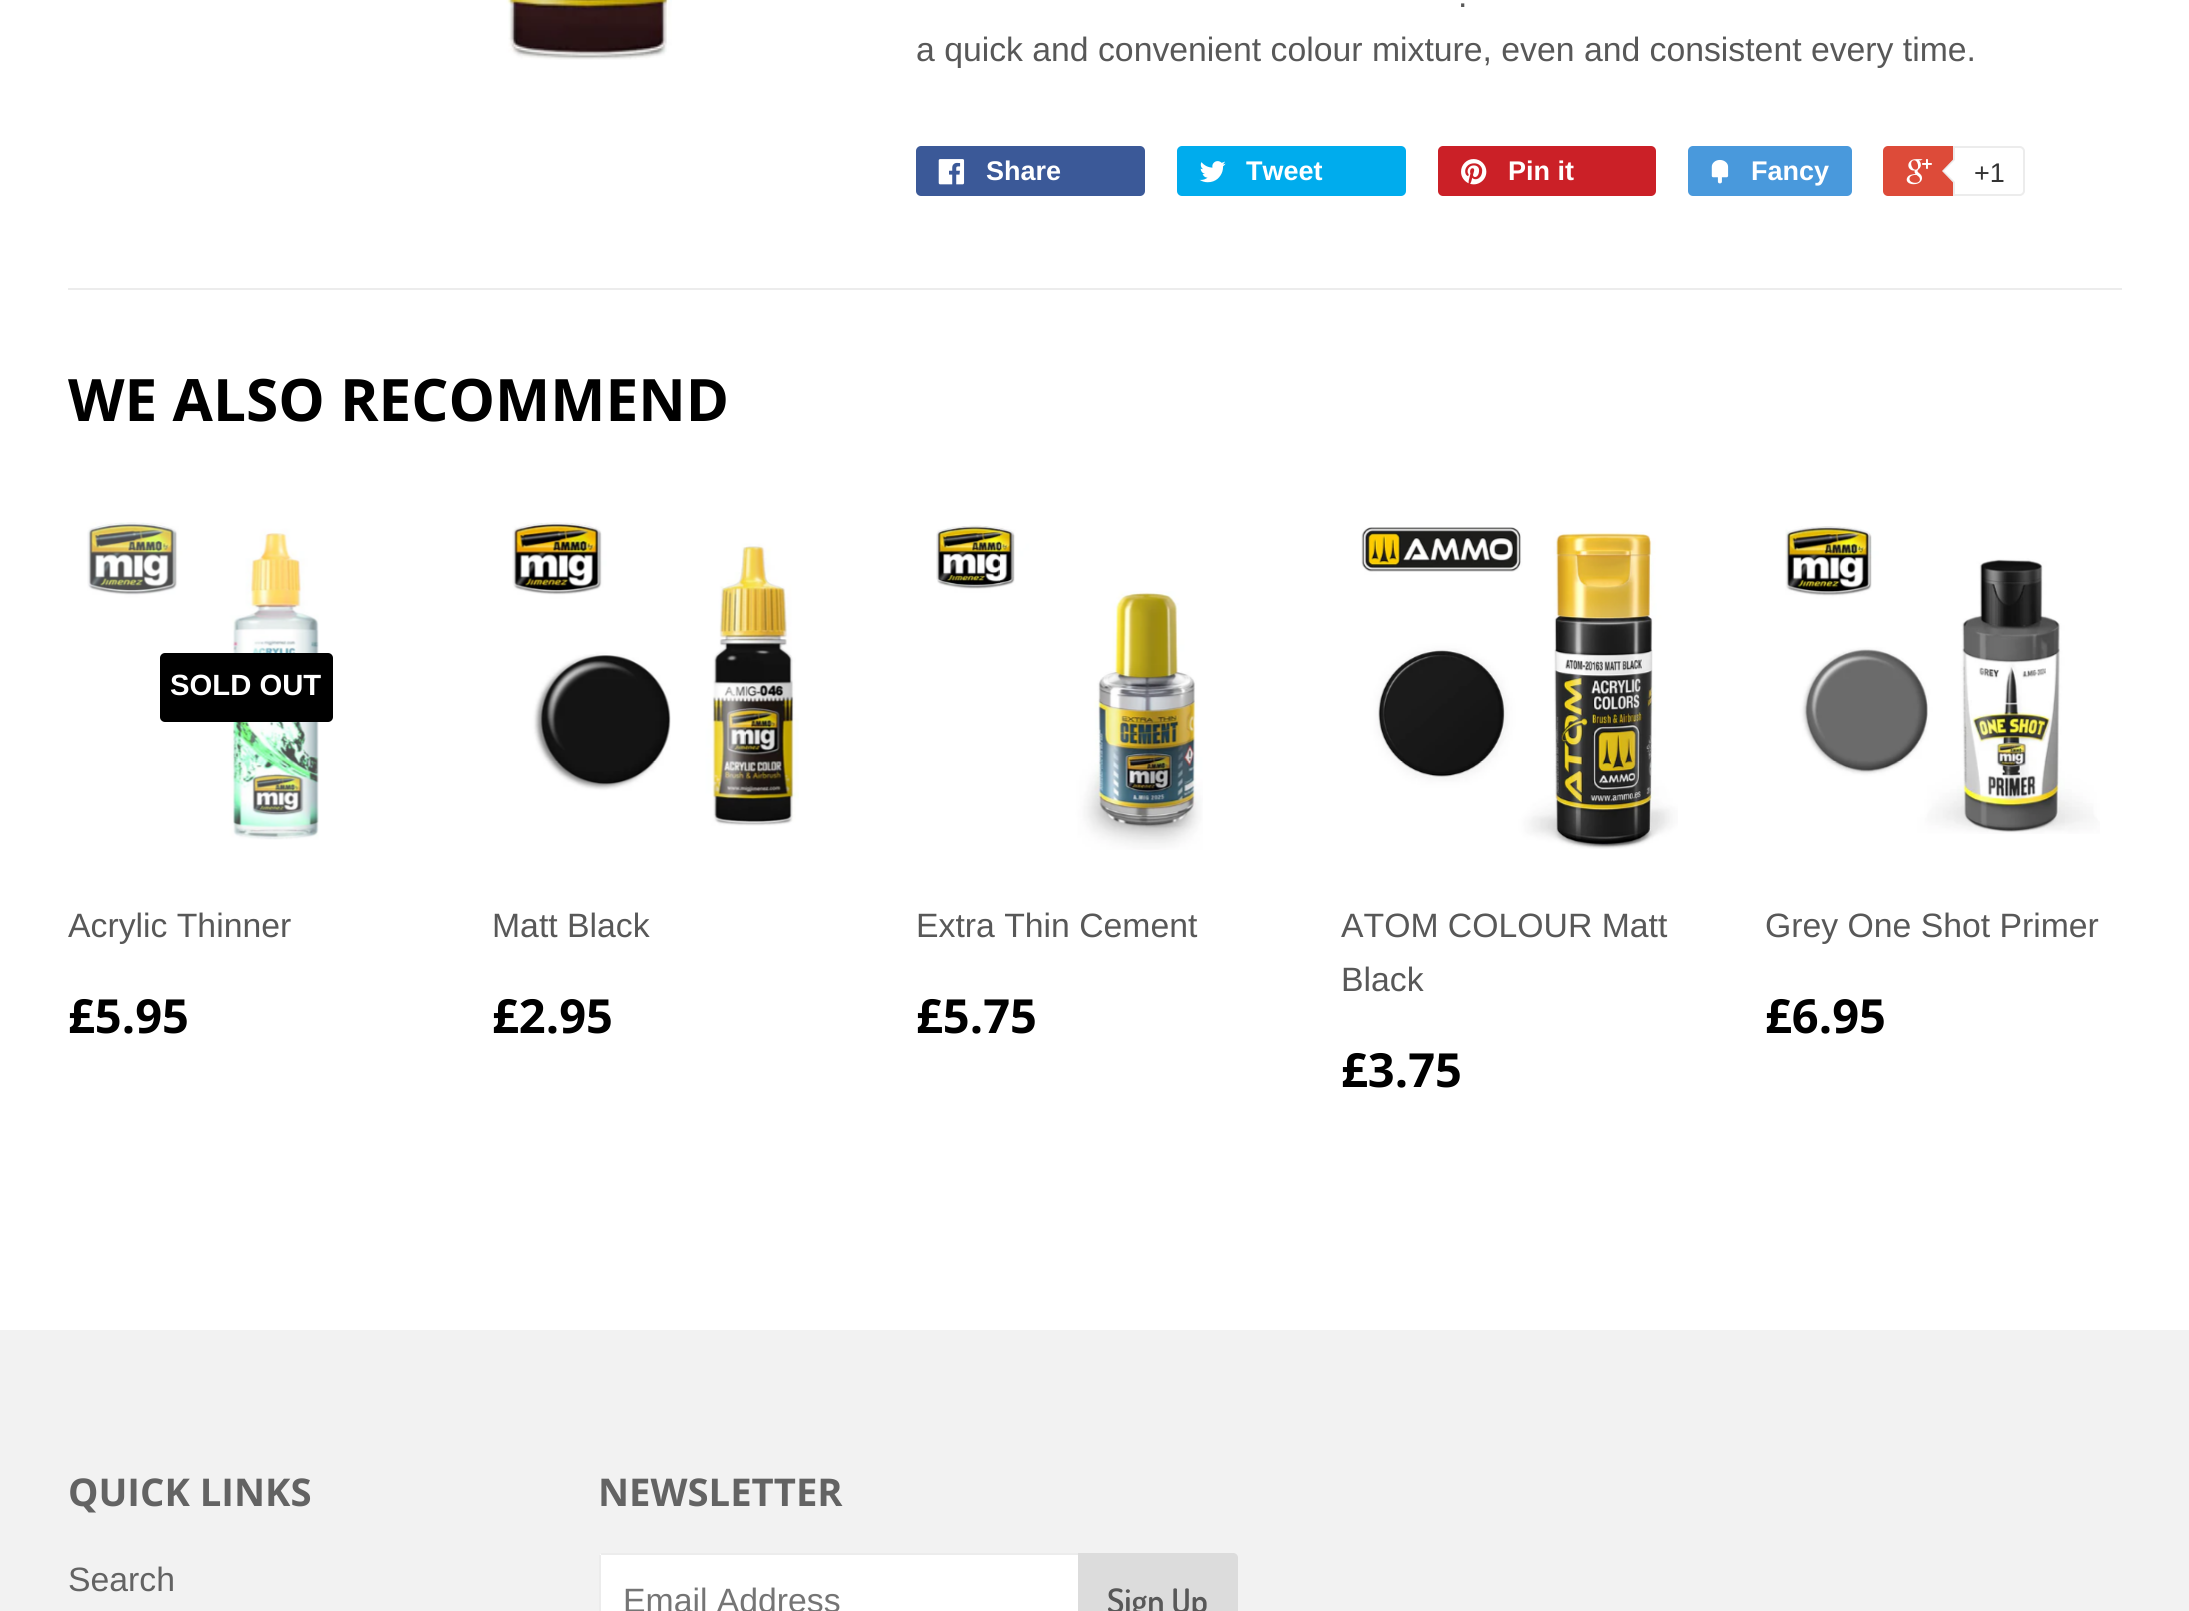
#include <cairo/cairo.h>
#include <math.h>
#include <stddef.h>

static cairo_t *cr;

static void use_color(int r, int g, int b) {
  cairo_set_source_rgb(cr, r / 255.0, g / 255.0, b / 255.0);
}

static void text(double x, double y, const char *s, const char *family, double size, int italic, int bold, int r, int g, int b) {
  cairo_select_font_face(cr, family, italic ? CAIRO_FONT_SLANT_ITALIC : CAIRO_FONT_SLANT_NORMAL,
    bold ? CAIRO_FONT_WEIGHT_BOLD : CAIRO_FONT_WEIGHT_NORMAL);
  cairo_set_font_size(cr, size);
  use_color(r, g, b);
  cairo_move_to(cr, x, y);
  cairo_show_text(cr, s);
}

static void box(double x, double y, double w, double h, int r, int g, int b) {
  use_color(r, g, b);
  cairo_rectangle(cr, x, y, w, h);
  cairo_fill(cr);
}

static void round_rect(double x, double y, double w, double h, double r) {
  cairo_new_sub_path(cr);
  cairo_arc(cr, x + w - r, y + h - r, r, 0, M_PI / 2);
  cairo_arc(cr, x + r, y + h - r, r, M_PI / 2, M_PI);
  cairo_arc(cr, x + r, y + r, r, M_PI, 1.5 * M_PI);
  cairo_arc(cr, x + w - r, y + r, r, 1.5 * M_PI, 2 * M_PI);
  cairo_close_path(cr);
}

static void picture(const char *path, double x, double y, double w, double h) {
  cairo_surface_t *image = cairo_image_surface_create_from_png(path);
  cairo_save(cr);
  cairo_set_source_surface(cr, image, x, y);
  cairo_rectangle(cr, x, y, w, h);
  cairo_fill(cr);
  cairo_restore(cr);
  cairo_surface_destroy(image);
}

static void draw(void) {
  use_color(255, 255, 255);
  cairo_paint(cr);
  picture("img_01.png", 506, 0, 166, 60);
  use_color(59, 89, 152);
  round_rect(916, 146, 229, 50, 5);
  cairo_fill(cr);
  picture("img_02.png", 938, 159, 27, 26);
  use_color(0, 172, 237);
  round_rect(1177, 146, 229, 50, 5);
  cairo_fill(cr);
  picture("img_03.png", 1199, 161, 27, 22);
  use_color(203, 32, 39);
  round_rect(1438, 146, 218, 50, 5);
  cairo_fill(cr);
  picture("img_04.png", 1461, 159, 26, 26);
  use_color(73, 153, 220);
  round_rect(1688, 146, 164, 50, 5);
  cairo_fill(cr);
  picture("img_05.png", 1711, 159, 18, 25);
  use_color(221, 75, 57);
  round_rect(1883, 146, 138, 50, 5);
  cairo_fill(cr);
  picture("img_06.png", 1906, 159, 26, 26);
  use_color(255, 255, 255);
  cairo_new_path(cr);
  cairo_move_to(cr, 1954, 147);
  cairo_line_to(cr, 2020, 147);
  cairo_curve_to(cr, 2022, 147, 2024, 149, 2024, 151);
  cairo_line_to(cr, 2024, 191);
  cairo_curve_to(cr, 2024, 193, 2022, 195, 2020, 195);
  cairo_line_to(cr, 1954, 195);
  cairo_close_path(cr);
  cairo_fill_preserve(cr);
  use_color(236, 236, 236);
  cairo_stroke(cr);
  cairo_new_path(cr);
  cairo_move_to(cr, 1955, 157.5);
  cairo_line_to(cr, 1955, 184.5);
  cairo_line_to(cr, 1942, 171);
  cairo_close_path(cr);
  cairo_fill(cr);
  use_color(255, 255, 255);
  cairo_new_path(cr);
  cairo_move_to(cr, 1957.5, 157.5);
  cairo_line_to(cr, 1957.5, 184.5);
  cairo_line_to(cr, 1944, 171);
  cairo_close_path(cr);
  cairo_fill(cr);
  box(68, 288, 2054, 2, 236, 236, 236);
  picture("img_07.png", 87, 522, 232, 318);
  use_color(0, 0, 0);
  round_rect(160, 653, 173, 69, 5);
  cairo_fill(cr);
  picture("img_08.png", 512, 522, 287, 304);
  picture("img_09.png", 936, 525, 267, 325);
  picture("img_10.png", 1361, 527, 317, 322);
  picture("img_11.png", 1785, 526, 315, 308);
  box(0, 1330, 2189, 281, 242, 242, 242);
  use_color(255, 255, 255);
  cairo_new_path(cr);
  cairo_move_to(cr, 604, 1553);
  cairo_line_to(cr, 1078, 1553);
  cairo_line_to(cr, 1078, 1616);
  cairo_line_to(cr, 604, 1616);
  cairo_curve_to(cr, 601, 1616, 599, 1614, 599, 1611);
  cairo_line_to(cr, 599, 1558);
  cairo_curve_to(cr, 599, 1555, 601, 1553, 604, 1553);
  cairo_close_path(cr);
  cairo_fill(cr);
  box(601, 1553, 477, 2, 236, 236, 236);
  box(599, 1555, 2, 56, 236, 236, 236);
  use_color(220, 220, 220);
  cairo_new_path(cr);
  cairo_move_to(cr, 1078, 1553);
  cairo_line_to(cr, 1233, 1553);
  cairo_curve_to(cr, 1236, 1553, 1238, 1555, 1238, 1558);
  cairo_line_to(cr, 1238, 1611);
  cairo_curve_to(cr, 1238, 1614, 1236, 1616, 1233, 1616);
  cairo_line_to(cr, 1078, 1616);
  cairo_close_path(cr);
  cairo_fill(cr);
  text(1458, 7, ".", "Liberation Sans", 33.75, 0, 0, 88, 88, 88);
  text(916, 61, "a quick and convenient colour mixture, even and consistent every time.", "Liberation Sans", 33.75, 0, 0, 88, 88, 88);
  text(986, 180, "Share", "Liberation Sans", 27, 0, 1, 255, 255, 255);
  text(1246, 180, "Tweet", "Liberation Sans", 27, 0, 1, 255, 255, 255);
  text(1508, 180, "Pin it", "Liberation Sans", 27, 0, 1, 255, 255, 255);
  text(1751, 180, "Fancy", "Liberation Sans", 27, 0, 1, 255, 255, 255);
  text(1974, 182, "+1", "Liberation Sans", 27, 0, 0, 51, 51, 51);
  text(68, 421, "WE ALSO RECOMMEND", "Open Sans", 58.5, 0, 1, 0, 0, 0);
  text(170, 695, "SOLD OUT", "Liberation Sans", 29.25, 0, 1, 255, 255, 255);
  text(68, 937, "Acrylic Thinner", "Liberation Sans", 33.75, 0, 0, 88, 88, 88);
  text(68, 1033, "£5.95", "Open Sans", 47, 0, 1, 0, 0, 0);
  text(492, 937, "Matt Black", "Liberation Sans", 33.75, 0, 0, 88, 88, 88);
  text(492, 1033, "£2.95", "Open Sans", 47, 0, 1, 0, 0, 0);
  text(916, 937, "Extra Thin Cement", "Liberation Sans", 33.75, 0, 0, 88, 88, 88);
  text(916, 1033, "£5.75", "Open Sans", 47, 0, 1, 0, 0, 0);
  text(1341, 937, "ATOM COLOUR Matt", "Liberation Sans", 33.75, 0, 0, 88, 88, 88);
  text(1341, 991, "Black", "Liberation Sans", 33.75, 0, 0, 88, 88, 88);
  text(1341, 1087, "£3.75", "Open Sans", 47, 0, 1, 0, 0, 0);
  text(1765, 937, "Grey One Shot Primer", "Liberation Sans", 33.75, 0, 0, 88, 88, 88);
  text(1765, 1033, "£6.95", "Open Sans", 47, 0, 1, 0, 0, 0);
  text(68, 1506, "QUICK LINKS", "Open Sans", 38.25, 0, 1, 99, 99, 99);
  text(68, 1591, "Search", "Liberation Sans", 33.75, 0, 0, 99, 99, 99);
  text(598, 1506, "NEWSLETTER", "Open Sans", 38.25, 0, 1, 99, 99, 99);
  text(623, 1612, "Email Address", "Liberation Sans", 33.75, 0, 0, 117, 117, 117);
  text(1107, 1613, "Sign Up", "Dosis SemiBold", 33.75, 0, 0, 88, 88, 88);
}

int main(void) {
  cairo_surface_t *surface = cairo_image_surface_create(CAIRO_FORMAT_RGB24, 2189, 1611);
  cr = cairo_create(surface);
  cairo_font_options_t *options = cairo_font_options_create();
  cairo_font_options_set_hint_metrics(options, CAIRO_HINT_METRICS_OFF);
  cairo_font_options_set_hint_style(options, CAIRO_HINT_STYLE_NONE);
  cairo_set_font_options(cr, options);
  cairo_set_miter_limit(cr, 4);
  draw();
  cairo_surface_write_to_png(surface, "out.png");
  cairo_font_options_destroy(options);
  cairo_destroy(cr);
  cairo_surface_destroy(surface);
  return 0;
}
